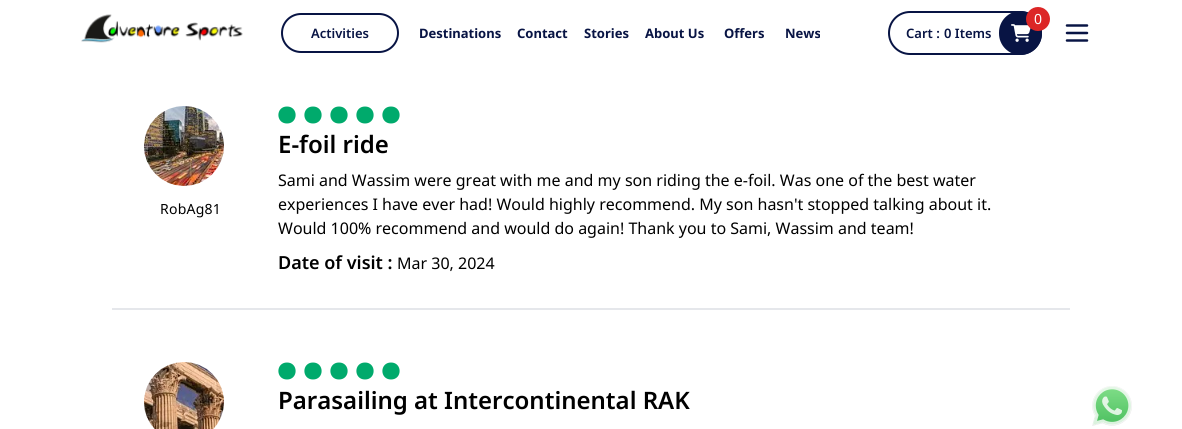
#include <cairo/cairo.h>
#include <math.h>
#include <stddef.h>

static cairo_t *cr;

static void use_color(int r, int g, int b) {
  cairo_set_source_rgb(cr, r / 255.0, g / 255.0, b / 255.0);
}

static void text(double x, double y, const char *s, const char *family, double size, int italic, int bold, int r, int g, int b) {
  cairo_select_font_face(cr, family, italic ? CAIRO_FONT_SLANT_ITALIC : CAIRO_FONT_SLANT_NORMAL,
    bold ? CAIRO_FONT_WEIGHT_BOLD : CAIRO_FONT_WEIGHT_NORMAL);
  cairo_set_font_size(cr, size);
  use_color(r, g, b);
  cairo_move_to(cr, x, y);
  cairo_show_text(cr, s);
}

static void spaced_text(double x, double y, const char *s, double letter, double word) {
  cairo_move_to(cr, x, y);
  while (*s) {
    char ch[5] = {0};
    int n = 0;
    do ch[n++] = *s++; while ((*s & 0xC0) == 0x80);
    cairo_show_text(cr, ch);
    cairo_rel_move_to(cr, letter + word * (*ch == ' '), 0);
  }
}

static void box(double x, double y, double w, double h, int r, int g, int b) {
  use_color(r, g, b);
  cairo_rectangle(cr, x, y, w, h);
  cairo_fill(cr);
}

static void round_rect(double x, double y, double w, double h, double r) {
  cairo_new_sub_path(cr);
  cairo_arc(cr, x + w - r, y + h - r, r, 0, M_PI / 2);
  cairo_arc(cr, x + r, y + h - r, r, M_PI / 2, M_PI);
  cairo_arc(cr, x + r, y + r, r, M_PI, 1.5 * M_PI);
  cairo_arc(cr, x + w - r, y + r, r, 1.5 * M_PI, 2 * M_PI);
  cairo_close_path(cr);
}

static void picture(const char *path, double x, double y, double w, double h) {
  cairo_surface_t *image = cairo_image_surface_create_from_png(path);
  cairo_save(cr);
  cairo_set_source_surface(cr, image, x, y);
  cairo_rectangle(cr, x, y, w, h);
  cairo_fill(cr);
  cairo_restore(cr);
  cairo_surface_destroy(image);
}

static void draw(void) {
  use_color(255, 255, 255);
  cairo_paint(cr);
  picture("img_01.png", 81, 14, 162, 29);
  round_rect(282, 14, 116, 38, 19);
  use_color(8, 20, 68);
  cairo_stroke(cr);
  round_rect(889, 12, 152, 42, 21);
  cairo_stroke(cr);
  round_rect(999, 11, 43, 44, 21.5);
  cairo_fill(cr);
  picture("img_02.png", 1011, 24, 20, 18);
  use_color(220, 38, 38);
  cairo_arc(cr, 1038, 19, 12, 0, 2 * M_PI);
  cairo_fill(cr);
  cairo_new_path(cr);
  cairo_move_to(cr, 1067, 33);
  cairo_line_to(cr, 1087, 33);
  cairo_move_to(cr, 1067, 25.5);
  cairo_line_to(cr, 1087, 25.5);
  cairo_move_to(cr, 1067, 40.5);
  cairo_line_to(cr, 1087, 40.5);
  use_color(8, 20, 68);
  cairo_set_line_width(cr, 2.5);
  cairo_set_line_cap(cr, CAIRO_LINE_CAP_ROUND);
  cairo_set_line_join(cr, CAIRO_LINE_JOIN_ROUND);
  cairo_stroke(cr);
  box(112, 308, 958, 2, 229, 231, 235);
  picture("img_03.png", 144, 106, 80, 80);
  use_color(0, 170, 108);
  cairo_new_path(cr);
  cairo_move_to(cr, 287, 106.5);
  cairo_curve_to(cr, 275.5, 106.5, 275.5, 123.5, 287, 123.5);
  cairo_curve_to(cr, 298.5, 123.5, 298.5, 106.5, 287, 106.5);
  cairo_close_path(cr);
  cairo_move_to(cr, 313, 106.5);
  cairo_curve_to(cr, 301.5, 106.5, 301.5, 123.5, 313, 123.5);
  cairo_curve_to(cr, 324.5, 123.5, 324.5, 106.5, 313, 106.5);
  cairo_close_path(cr);
  cairo_fill(cr);
  cairo_new_path(cr);
  cairo_move_to(cr, 339, 106.5);
  cairo_curve_to(cr, 327.5, 106.5, 327.5, 123.5, 339, 123.5);
  cairo_curve_to(cr, 350.5, 123.5, 350.5, 106.5, 339, 106.5);
  cairo_close_path(cr);
  cairo_move_to(cr, 365, 106.5);
  cairo_curve_to(cr, 353.5, 106.5, 353.5, 123.5, 365, 123.5);
  cairo_curve_to(cr, 376.5, 123.5, 376.5, 106.5, 365, 106.5);
  cairo_close_path(cr);
  cairo_fill(cr);
  cairo_new_path(cr);
  cairo_move_to(cr, 391, 106.5);
  cairo_curve_to(cr, 379.5, 106.5, 379.5, 123.5, 391, 123.5);
  cairo_curve_to(cr, 402.5, 123.5, 402.5, 106.5, 391, 106.5);
  cairo_close_path(cr);
  cairo_fill(cr);
  picture("img_04.png", 144, 362, 80, 67);
  cairo_new_path(cr);
  cairo_move_to(cr, 287, 362.5);
  cairo_curve_to(cr, 275.5, 362.5, 275.5, 379.5, 287, 379.5);
  cairo_curve_to(cr, 298.5, 379.5, 298.5, 362.5, 287, 362.5);
  cairo_close_path(cr);
  cairo_move_to(cr, 313, 362.5);
  cairo_curve_to(cr, 301.5, 362.5, 301.5, 379.5, 313, 379.5);
  cairo_curve_to(cr, 324.5, 379.5, 324.5, 362.5, 313, 362.5);
  cairo_close_path(cr);
  cairo_fill(cr);
  cairo_new_path(cr);
  cairo_move_to(cr, 339, 362.5);
  cairo_curve_to(cr, 327.5, 362.5, 327.5, 379.5, 339, 379.5);
  cairo_curve_to(cr, 350.5, 379.5, 350.5, 362.5, 339, 362.5);
  cairo_close_path(cr);
  cairo_move_to(cr, 365, 362.5);
  cairo_curve_to(cr, 353.5, 362.5, 353.5, 379.5, 365, 379.5);
  cairo_curve_to(cr, 376.5, 379.5, 376.5, 362.5, 365, 362.5);
  cairo_close_path(cr);
  cairo_fill(cr);
  cairo_new_path(cr);
  cairo_move_to(cr, 391, 362.5);
  cairo_curve_to(cr, 379.5, 362.5, 379.5, 379.5, 391, 379.5);
  cairo_curve_to(cr, 402.5, 379.5, 402.5, 362.5, 391, 362.5);
  cairo_close_path(cr);
  cairo_fill(cr);
  picture("img_05.png", 1092, 386, 40, 40);
  text(311, 38, "Activities", "Noto Sans SemiBold", 13, 0, 0, 8, 20, 68);
  text(419, 38, "Destinations", "Noto Sans", 13, 0, 1, 8, 20, 68);
  text(517, 38, "Contact", "Noto Sans", 13, 0, 1, 8, 20, 68);
  text(584, 38, "Stories", "Noto Sans", 13, 0, 1, 8, 20, 68);
  text(645, 38, "About Us", "Noto Sans", 13, 0, 1, 8, 20, 68);
  text(724, 38, "Offers", "Noto Sans", 13, 0, 1, 8, 20, 68);
  text(785, 38, "News", "Noto Sans", 13, 0, 1, 8, 20, 68);
  text(1034, 24, "0", "Noto Sans", 14, 0, 0, 255, 255, 255);
  text(906, 38, "Cart :", "Noto Sans SemiBold", 13, 0, 0, 8, 20, 68);
  text(944, 38, "0 Items", "Noto Sans SemiBold", 13, 0, 0, 8, 20, 68);
  cairo_select_font_face(cr, "Noto Sans", CAIRO_FONT_SLANT_NORMAL, CAIRO_FONT_WEIGHT_NORMAL);
  cairo_set_font_size(cr, 14);
  use_color(0, 0, 0);
  spaced_text(160, 214, "RobAg81", 0.25, 0);
  text(278, 153, "E-foil ride", "Noto Sans SemiBold", 24, 0, 0, 0, 0, 0);
  text(278, 186, "Sami and Wassim were great with me and my son riding the e-foil. Was one of the best water", "Noto Sans", 16, 0, 0, 0, 0, 0);
  text(278, 210, "experiences I have ever had! Would highly recommend. My son hasn't stopped talking about it.", "Noto Sans", 16, 0, 0, 0, 0, 0);
  text(278, 234, "Would 100% recommend and would do again! Thank you to Sami, Wassim and team!", "Noto Sans", 16, 0, 0, 0, 0, 0);
  text(278, 269, "Date of visit :", "Noto Sans SemiBold", 18, 0, 0, 0, 0, 0);
  text(397, 269, "Mar 30, 2024", "Noto Sans", 16, 0, 0, 0, 0, 0);
  text(278, 409, "Parasailing at Intercontinental RAK", "Noto Sans SemiBold", 24, 0, 0, 0, 0, 0);
}

int main(void) {
  cairo_surface_t *surface = cairo_image_surface_create(CAIRO_FORMAT_RGB24, 1182, 429);
  cr = cairo_create(surface);
  cairo_font_options_t *options = cairo_font_options_create();
  cairo_font_options_set_hint_metrics(options, CAIRO_HINT_METRICS_OFF);
  cairo_font_options_set_hint_style(options, CAIRO_HINT_STYLE_NONE);
  cairo_set_font_options(cr, options);
  cairo_set_miter_limit(cr, 4);
  draw();
  cairo_surface_write_to_png(surface, "out.png");
  cairo_font_options_destroy(options);
  cairo_destroy(cr);
  cairo_surface_destroy(surface);
  return 0;
}
